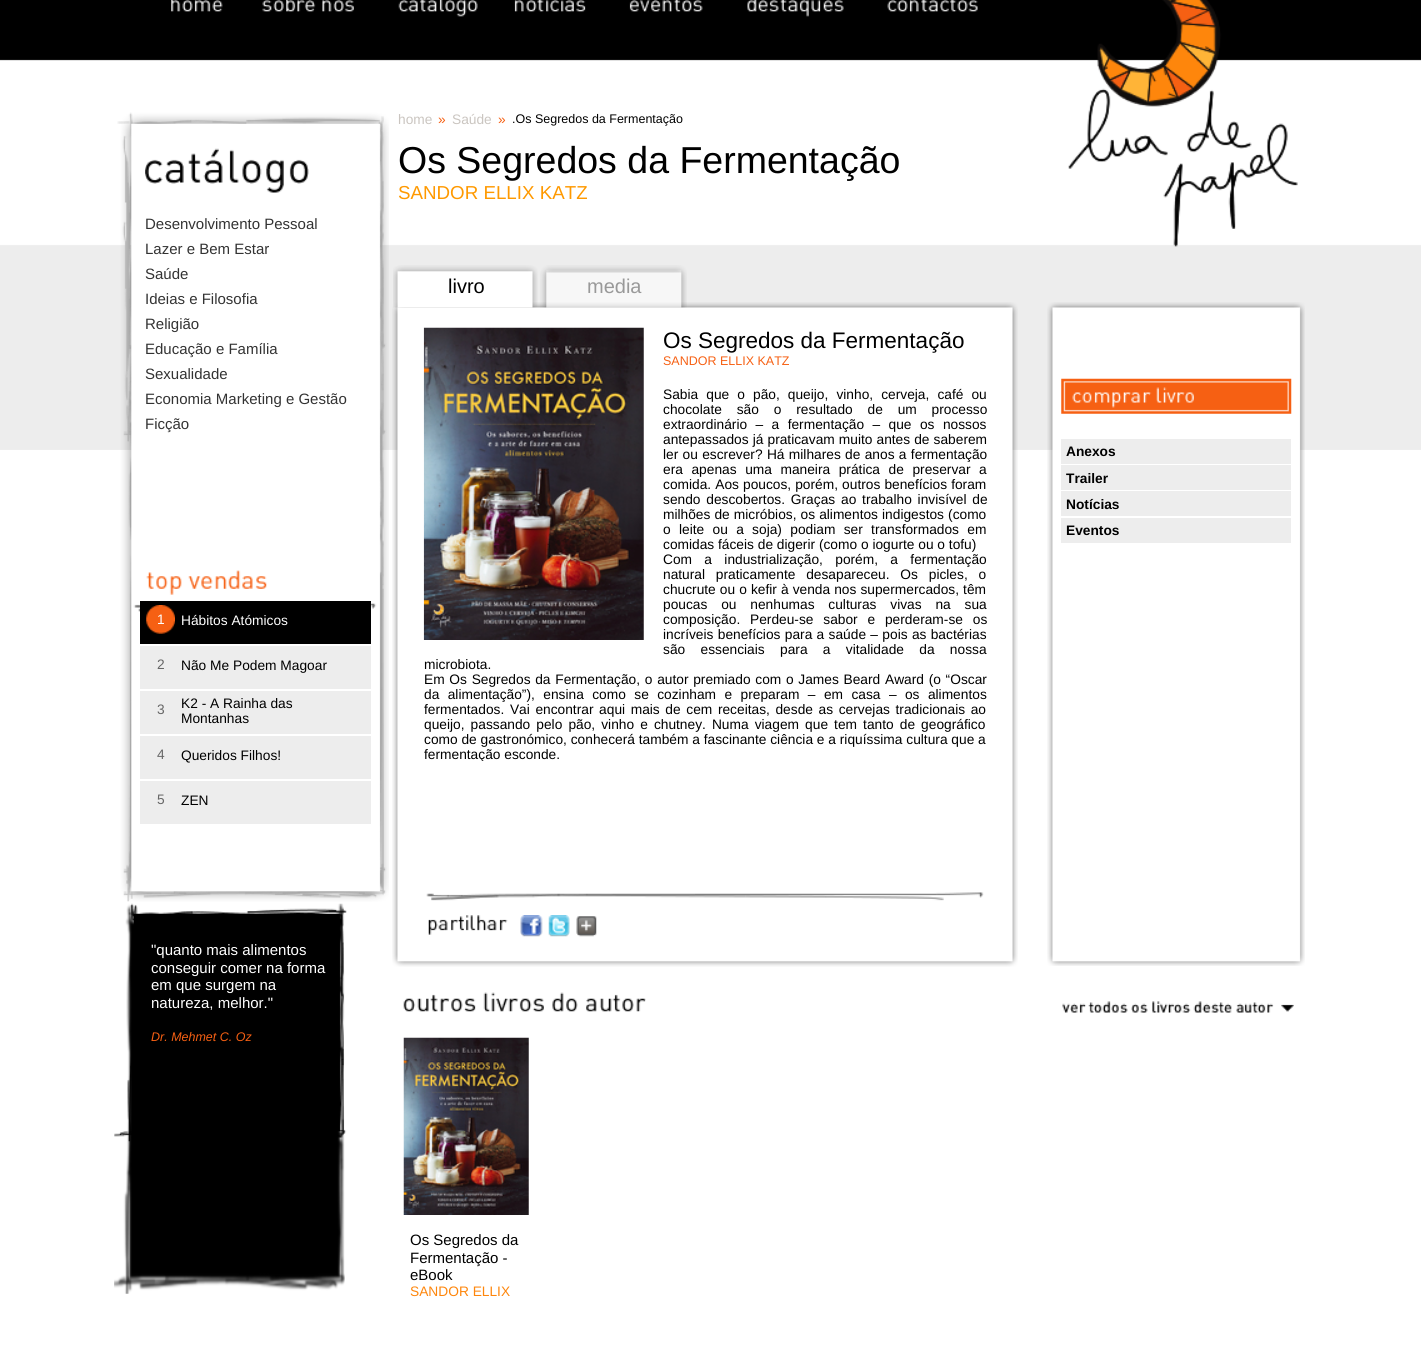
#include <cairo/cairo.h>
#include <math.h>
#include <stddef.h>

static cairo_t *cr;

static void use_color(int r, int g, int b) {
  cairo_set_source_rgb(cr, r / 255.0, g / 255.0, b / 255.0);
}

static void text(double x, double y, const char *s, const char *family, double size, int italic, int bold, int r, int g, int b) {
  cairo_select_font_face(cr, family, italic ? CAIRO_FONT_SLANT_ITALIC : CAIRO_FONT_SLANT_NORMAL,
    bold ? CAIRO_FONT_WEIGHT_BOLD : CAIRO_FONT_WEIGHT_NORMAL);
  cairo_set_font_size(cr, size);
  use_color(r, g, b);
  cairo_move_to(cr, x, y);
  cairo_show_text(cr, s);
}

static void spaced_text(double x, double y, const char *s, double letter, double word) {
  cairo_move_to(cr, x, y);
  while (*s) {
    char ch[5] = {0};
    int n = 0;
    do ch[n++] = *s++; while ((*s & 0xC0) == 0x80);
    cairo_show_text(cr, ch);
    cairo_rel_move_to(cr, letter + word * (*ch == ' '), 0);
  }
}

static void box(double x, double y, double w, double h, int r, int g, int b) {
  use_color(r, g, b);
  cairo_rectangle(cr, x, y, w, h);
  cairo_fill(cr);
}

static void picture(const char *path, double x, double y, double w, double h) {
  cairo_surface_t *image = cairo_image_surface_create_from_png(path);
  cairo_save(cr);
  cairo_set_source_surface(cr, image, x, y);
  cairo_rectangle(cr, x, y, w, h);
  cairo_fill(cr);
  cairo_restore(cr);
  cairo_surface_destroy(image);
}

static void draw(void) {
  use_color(255, 255, 255);
  cairo_paint(cr);
  picture("img_01.png", 0, 0, 1421, 450);
  picture("img_02.png", 171, 0, 52, 12);
  picture("img_03.png", 262, 0, 92, 12);
  picture("img_04.png", 398, 0, 80, 17);
  picture("img_05.png", 514, 0, 72, 12);
  picture("img_06.png", 629, 0, 74, 12);
  picture("img_07.png", 747, 0, 97, 17);
  picture("img_08.png", 887, 0, 91, 12);
  picture("img_09.png", 1068, 0, 230, 247);
  picture("img_10.png", 117, 112, 272, 790);
  picture("img_11.png", 145, 148, 164, 45);
  picture("img_12.png", 146, 570, 121, 25);
  box(140, 601, 231, 43, 0, 0, 0);
  picture("img_13.png", 146, 605, 29, 29);
  box(140, 646, 231, 43, 237, 237, 237);
  box(140, 691, 231, 43, 237, 237, 237);
  box(140, 736, 231, 43, 237, 237, 237);
  box(140, 781, 231, 43, 237, 237, 237);
  picture("img_14.png", 114, 903, 231, 391);
  picture("img_15.png", 114, 903, 233, 239);
  picture("img_16.png", 392, 302, 626, 665);
  picture("img_17.png", 393, 265, 145, 43);
  picture("img_18.png", 540, 265, 147, 43);
  picture("img_19.png", 423, 327, 221, 313);
  picture("img_20.png", 428, 915, 80, 20);
  picture("img_21.png", 520, 915, 23, 22);
  picture("img_22.png", 548, 915, 22, 22);
  picture("img_23.png", 576, 916, 21, 21);
  picture("img_24.png", 1047, 302, 258, 664);
  picture("img_25.png", 1061, 378, 231, 36);
  box(1061, 439, 230, 25, 237, 237, 237);
  box(1061, 465, 230, 25, 237, 237, 237);
  box(1061, 491, 230, 25, 237, 237, 237);
  box(1061, 518, 230, 25, 237, 237, 237);
  picture("img_26.png", 403, 992, 243, 20);
  picture("img_27.png", 1062, 1001, 232, 12);
  picture("img_28.png", 403, 1037, 126, 178);
  text(145, 229, "Desenvolvimento Pessoal", "Liberation Sans", 15, 0, 0, 51, 51, 51);
  text(145, 254, "Lazer e Bem Estar", "Liberation Sans", 15, 0, 0, 51, 51, 51);
  text(145, 279, "Saúde", "Liberation Sans", 15, 0, 0, 51, 51, 51);
  text(145, 304, "Ideias e Filosofia", "Liberation Sans", 15, 0, 0, 51, 51, 51);
  text(145, 329, "Religião", "Liberation Sans", 15, 0, 0, 51, 51, 51);
  text(145, 354, "Educação e Família", "Liberation Sans", 15, 0, 0, 51, 51, 51);
  text(145, 379, "Sexualidade", "Liberation Sans", 15, 0, 0, 51, 51, 51);
  text(145, 404, "Economia Marketing e Gestão", "Liberation Sans", 15, 0, 0, 51, 51, 51);
  text(145, 429, "Ficção", "Liberation Sans", 15, 0, 0, 51, 51, 51);
  text(157, 624, "1", "Liberation Sans", 13.75, 0, 0, 255, 255, 255);
  text(181, 625, "Hábitos Atómicos", "Liberation Sans", 13.75, 0, 0, 255, 255, 255);
  text(157, 669, "2", "Liberation Sans", 13.75, 0, 0, 102, 102, 102);
  text(181, 670, "Não Me Podem Magoar", "Liberation Sans", 13.75, 0, 0, 0, 0, 0);
  text(157, 714, "3", "Liberation Sans", 13.75, 0, 0, 102, 102, 102);
  text(181, 708, "K2 - A Rainha das", "Liberation Sans", 13.75, 0, 0, 0, 0, 0);
  text(181, 723, "Montanhas", "Liberation Sans", 13.75, 0, 0, 0, 0, 0);
  text(157, 759, "4", "Liberation Sans", 13.75, 0, 0, 102, 102, 102);
  text(181, 760, "Queridos Filhos!", "Liberation Sans", 13.75, 0, 0, 0, 0, 0);
  text(157, 804, "5", "Liberation Sans", 13.75, 0, 0, 102, 102, 102);
  text(181, 805, "ZEN", "Liberation Sans", 13.75, 0, 0, 0, 0, 0);
  text(151, 955, "\"quanto mais alimentos", "Liberation Sans", 15, 0, 0, 255, 255, 255);
  text(151, 973, "conseguir comer na forma", "Liberation Sans", 15, 0, 0, 255, 255, 255);
  text(151, 990, "em que surgem na", "Liberation Sans", 15, 0, 0, 255, 255, 255);
  text(151, 1008, "natureza, melhor.\"", "Liberation Sans", 15, 0, 0, 255, 255, 255);
  text(151, 1041, "Dr. Mehmet C. Oz", "Liberation Sans", 12.5, 1, 0, 246, 96, 19);
  text(398, 124, "home", "Liberation Sans", 13.75, 0, 0, 202, 197, 192);
  text(438, 124, "»", "Liberation Sans", 13.75, 0, 0, 246, 96, 19);
  text(452, 124, "Saúde", "Liberation Sans", 13.75, 0, 0, 202, 197, 192);
  text(498, 124, "»", "Liberation Sans", 13.75, 0, 0, 246, 96, 19);
  text(512, 123, ".Os Segredos da Fermentação", "Liberation Sans", 12.5, 0, 0, 0, 0, 0);
  text(398, 173, "Os Segredos da Fermentação", "Liberation Sans", 37.5, 0, 0, 0, 0, 0);
  text(398, 199, "SANDOR ELLIX KATZ", "Liberation Sans", 18.75, 0, 0, 255, 153, 0);
  text(448, 293, "livro", "Liberation Sans", 20, 0, 0, 0, 0, 0);
  text(587, 293, "media", "Liberation Sans", 20, 0, 0, 153, 153, 153);
  text(663, 348, "Os Segredos da Fermentação", "Liberation Sans", 22.5, 0, 0, 0, 0, 0);
  text(663, 365, "SANDOR ELLIX KATZ", "Liberation Sans", 12.5, 0, 0, 246, 96, 19);
  cairo_set_font_size(cr, 13.75);
  use_color(0, 0, 0);
  spaced_text(663, 399, "Sabia que o pão, queijo, vinho, cerveja, café ou", 0, 4.25);
  spaced_text(663, 414, "chocolate são o resultado de um processo", 0, 11);
  spaced_text(663, 429, "extraordinário – a fermentação – que os nossos", 0, 4.6);
  spaced_text(663, 444, "antepassados já praticavam muito antes de saberem", 0, 0.25);
  spaced_text(663, 459, "ler ou escrever? Há milhares de anos a fermentação", 0, 0.5);
  spaced_text(663, 474, "era apenas uma maneira prática de preservar a", 0, 4.75);
  spaced_text(663, 489, "comida. Aos poucos, porém, outros benefícios foram", 0, 0.25);
  spaced_text(663, 504, "sendo descobertos. Graças ao trabalho invisível de", 0, 2);
  spaced_text(663, 519, "milhões de micróbios, os alimentos indigestos (como", 0, 0.25);
  spaced_text(663, 534, "o leite ou a soja) podiam ser transformados em", 0, 4.5);
  text(663, 549, "comidas fáceis de digerir (como o iogurte ou o tofu)", "Liberation Sans", 13.75, 0, 0, 0, 0, 0);
  spaced_text(663, 564, "Com a industrialização, porém, a fermentação", 0, 8.5);
  spaced_text(663, 579, "natural praticamente desapareceu. Os picles, o", 0, 7);
  spaced_text(663, 594, "chucrute ou o kefir à venda nos supermercados, têm", 0, 0.25);
  spaced_text(663, 609, "poucas ou nenhumas culturas vivas na sua", 0, 10);
  spaced_text(663, 624, "composição. Perdeu-se sabor e perderam-se os", 0, 6);
  spaced_text(663, 639, "incríveis benefícios para a saúde – pois as bactérias", 0, 0.5);
  spaced_text(663, 654, "são essenciais para a vitalidade da nossa", 0, 11.5);
  text(424, 669, "microbiota.", "Liberation Sans", 13.75, 0, 0, 0, 0, 0);
  spaced_text(424, 684, "Em Os Segredos da Fermentação, o autor premiado com o James Beard Award (o “Oscar", 0, 0.9);
  spaced_text(424, 699, "da alimentação”), ensina como se cozinham e preparam – em casa – os alimentos", 0, 4.6);
  spaced_text(424, 714, "fermentados. Vai encontrar aqui mais de cem receitas, desde as cervejas tradicionais ao", 0, 1.8);
  spaced_text(424, 729, "queijo, passando pelo pão, vinho e chutney. Numa viagem que tem tanto de geográfico", 0, 2.25);
  text(424, 744, "como de gastronómico, conhecerá também a fascinante ciência e a riquíssima cultura que a", "Liberation Sans", 13.75, 0, 0, 0, 0, 0);
  cairo_save(cr);
  cairo_rectangle(cr, 424, 328, 562, 433);
  cairo_clip(cr);
  text(424, 759, "fermentação esconde.", "Liberation Sans", 13.75, 0, 0, 0, 0, 0);
  cairo_restore(cr);
  text(1066, 456, "Anexos", "Liberation Sans", 13.75, 0, 1, 0, 0, 0);
  text(1066, 483, "Trailer", "Liberation Sans", 13.75, 0, 1, 0, 0, 0);
  text(1066, 509, "Notícias", "Liberation Sans", 13.75, 0, 1, 0, 0, 0);
  text(1066, 535, "Eventos", "Liberation Sans", 13.75, 0, 1, 0, 0, 0);
  text(410, 1245, "Os Segredos da", "Liberation Sans", 15, 0, 0, 0, 0, 0);
  text(410, 1263, "Fermentação -", "Liberation Sans", 15, 0, 0, 0, 0, 0);
  text(410, 1280, "eBook", "Liberation Sans", 15, 0, 0, 0, 0, 0);
  text(410, 1296, "SANDOR ELLIX", "Liberation Sans", 13.75, 0, 0, 254, 134, 12);
}

int main(void) {
  cairo_surface_t *surface = cairo_image_surface_create(CAIRO_FORMAT_RGB24, 1421, 1364);
  cr = cairo_create(surface);
  cairo_font_options_t *options = cairo_font_options_create();
  cairo_font_options_set_hint_metrics(options, CAIRO_HINT_METRICS_OFF);
  cairo_font_options_set_hint_style(options, CAIRO_HINT_STYLE_NONE);
  cairo_set_font_options(cr, options);
  cairo_set_miter_limit(cr, 4);
  draw();
  cairo_surface_write_to_png(surface, "out.png");
  cairo_font_options_destroy(options);
  cairo_destroy(cr);
  cairo_surface_destroy(surface);
  return 0;
}
